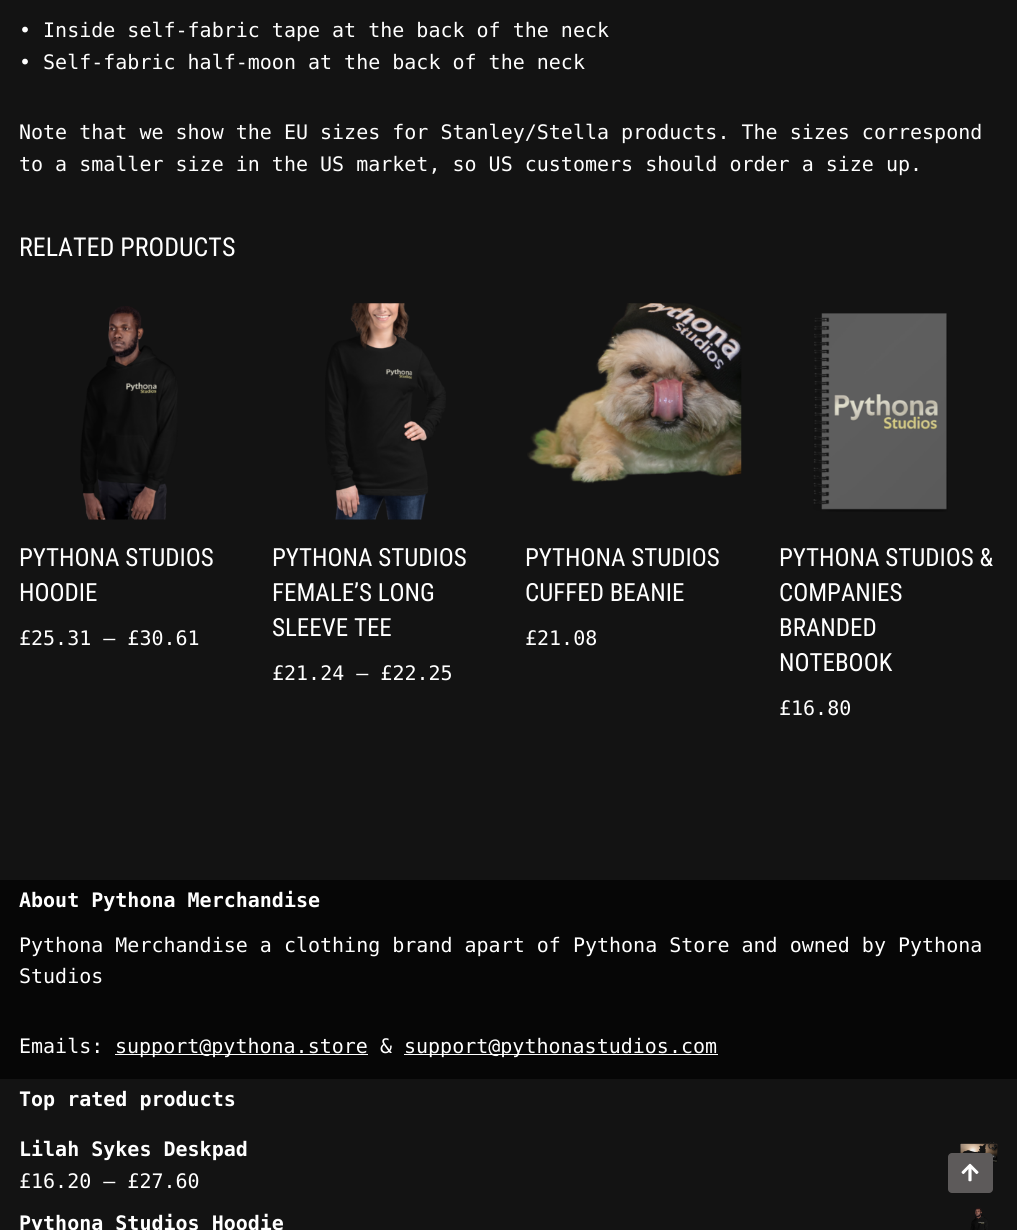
#include <cairo/cairo.h>
#include <math.h>
#include <stddef.h>

static cairo_t *cr;

static void use_color(int r, int g, int b) {
  cairo_set_source_rgb(cr, r / 255.0, g / 255.0, b / 255.0);
}

static void text(double x, double y, const char *s, const char *family, double size, int italic, int bold, int r, int g, int b) {
  cairo_select_font_face(cr, family, italic ? CAIRO_FONT_SLANT_ITALIC : CAIRO_FONT_SLANT_NORMAL,
    bold ? CAIRO_FONT_WEIGHT_BOLD : CAIRO_FONT_WEIGHT_NORMAL);
  cairo_set_font_size(cr, size);
  use_color(r, g, b);
  cairo_move_to(cr, x, y);
  cairo_show_text(cr, s);
}

static void box(double x, double y, double w, double h, int r, int g, int b) {
  use_color(r, g, b);
  cairo_rectangle(cr, x, y, w, h);
  cairo_fill(cr);
}

static void round_rect(double x, double y, double w, double h, double r) {
  cairo_new_sub_path(cr);
  cairo_arc(cr, x + w - r, y + h - r, r, 0, M_PI / 2);
  cairo_arc(cr, x + r, y + h - r, r, M_PI / 2, M_PI);
  cairo_arc(cr, x + r, y + r, r, M_PI, 1.5 * M_PI);
  cairo_arc(cr, x + w - r, y + r, r, 1.5 * M_PI, 2 * M_PI);
  cairo_close_path(cr);
}

static void picture(const char *path, double x, double y, double w, double h) {
  cairo_surface_t *image = cairo_image_surface_create_from_png(path);
  cairo_save(cr);
  cairo_set_source_surface(cr, image, x, y);
  cairo_rectangle(cr, x, y, w, h);
  cairo_fill(cr);
  cairo_restore(cr);
  cairo_surface_destroy(image);
}

static void draw(void) {
  use_color(19, 19, 19);
  cairo_paint(cr);
  picture("img_01.png", 80, 306, 98, 214);
  picture("img_02.png", 325, 303, 121, 217);
  picture("img_03.png", 527, 303, 215, 181);
  picture("img_04.png", 813, 313, 135, 199);
  box(0, 880, 1017, 199, 6, 6, 6);
  box(115, 1054, 253, 1, 255, 255, 255);
  box(404, 1054, 314, 1, 255, 255, 255);
  picture("img_05.png", 960, 1142, 38, 21);
  picture("img_06.png", 970, 1207, 18, 23);
  use_color(93, 90, 90);
  round_rect(948, 1153, 45, 40, 4);
  cairo_fill(cr);
  picture("img_07.png", 961, 1163, 18, 19);
  text(19, 37, "• Inside self-fabric tape at the back of the neck", "DejaVu Sans Mono", 20, 0, 0, 255, 255, 255);
  text(19, 69, "• Self-fabric half-moon at the back of the neck", "DejaVu Sans Mono", 20, 0, 0, 255, 255, 255);
  text(19, 139, "Note that we show the EU sizes for Stanley/Stella products. The sizes correspond", "DejaVu Sans Mono", 20, 0, 0, 255, 255, 255);
  text(19, 171, "to a smaller size in the US market, so US customers should order a size up.", "DejaVu Sans Mono", 20, 0, 0, 255, 255, 255);
  text(19, 256, "RELATED PRODUCTS", "Roboto Condensed", 26, 0, 0, 255, 255, 255);
  text(19, 566, "PYTHONA STUDIOS", "Roboto Condensed", 25, 0, 0, 255, 255, 255);
  text(19, 601, "HOODIE", "Roboto Condensed", 25, 0, 0, 255, 255, 255);
  text(19, 645, "£25.31 – £30.61", "DejaVu Sans Mono", 20, 0, 0, 255, 255, 255);
  text(272, 566, "PYTHONA STUDIOS", "Roboto Condensed", 25, 0, 0, 255, 255, 255);
  text(272, 601, "FEMALE’S LONG", "Roboto Condensed", 25, 0, 0, 255, 255, 255);
  text(272, 636, "SLEEVE TEE", "Roboto Condensed", 25, 0, 0, 255, 255, 255);
  text(272, 680, "£21.24 – £22.25", "DejaVu Sans Mono", 20, 0, 0, 255, 255, 255);
  text(525, 566, "PYTHONA STUDIOS", "Roboto Condensed", 25, 0, 0, 255, 255, 255);
  text(525, 601, "CUFFED BEANIE", "Roboto Condensed", 25, 0, 0, 255, 255, 255);
  text(525, 645, "£21.08", "DejaVu Sans Mono", 20, 0, 0, 255, 255, 255);
  text(779, 566, "PYTHONA STUDIOS &", "Roboto Condensed", 25, 0, 0, 255, 255, 255);
  text(779, 601, "COMPANIES", "Roboto Condensed", 25, 0, 0, 255, 255, 255);
  text(779, 636, "BRANDED", "Roboto Condensed", 25, 0, 0, 255, 255, 255);
  text(779, 671, "NOTEBOOK", "Roboto Condensed", 25, 0, 0, 255, 255, 255);
  text(779, 715, "£16.80", "DejaVu Sans Mono", 20, 0, 0, 255, 255, 255);
  text(19, 907, "About Pythona Merchandise", "DejaVu Sans Mono", 20, 0, 1, 255, 255, 255);
  text(19, 952, "Pythona Merchandise a clothing brand apart of Pythona Store and owned by Pythona", "DejaVu Sans Mono", 20, 0, 0, 255, 255, 255);
  text(19, 983, "Studios", "DejaVu Sans Mono", 20, 0, 0, 255, 255, 255);
  text(19, 1053, "Emails:", "DejaVu Sans Mono", 20, 0, 0, 255, 255, 255);
  text(115, 1053, "support@pythona.store &", "DejaVu Sans Mono", 20, 0, 0, 255, 255, 255);
  text(404, 1053, "support@pythonastudios.com", "DejaVu Sans Mono", 20, 0, 0, 255, 255, 255);
  text(19, 1106, "Top rated products", "DejaVu Sans Mono", 20, 0, 1, 255, 255, 255);
  text(19, 1156, "Lilah Sykes Deskpad", "DejaVu Sans Mono", 20, 0, 1, 255, 255, 255);
  text(19, 1188, "£16.20 – £27.60", "DejaVu Sans Mono", 20, 0, 0, 255, 255, 255);
  text(19, 1230, "Pythona Studios Hoodie", "DejaVu Sans Mono", 20, 0, 1, 255, 255, 255);
}

int main(void) {
  cairo_surface_t *surface = cairo_image_surface_create(CAIRO_FORMAT_RGB24, 1017, 1230);
  cr = cairo_create(surface);
  cairo_font_options_t *options = cairo_font_options_create();
  cairo_font_options_set_hint_metrics(options, CAIRO_HINT_METRICS_OFF);
  cairo_font_options_set_hint_style(options, CAIRO_HINT_STYLE_NONE);
  cairo_set_font_options(cr, options);
  cairo_set_miter_limit(cr, 4);
  draw();
  cairo_surface_write_to_png(surface, "out.png");
  cairo_font_options_destroy(options);
  cairo_destroy(cr);
  cairo_surface_destroy(surface);
  return 0;
}
